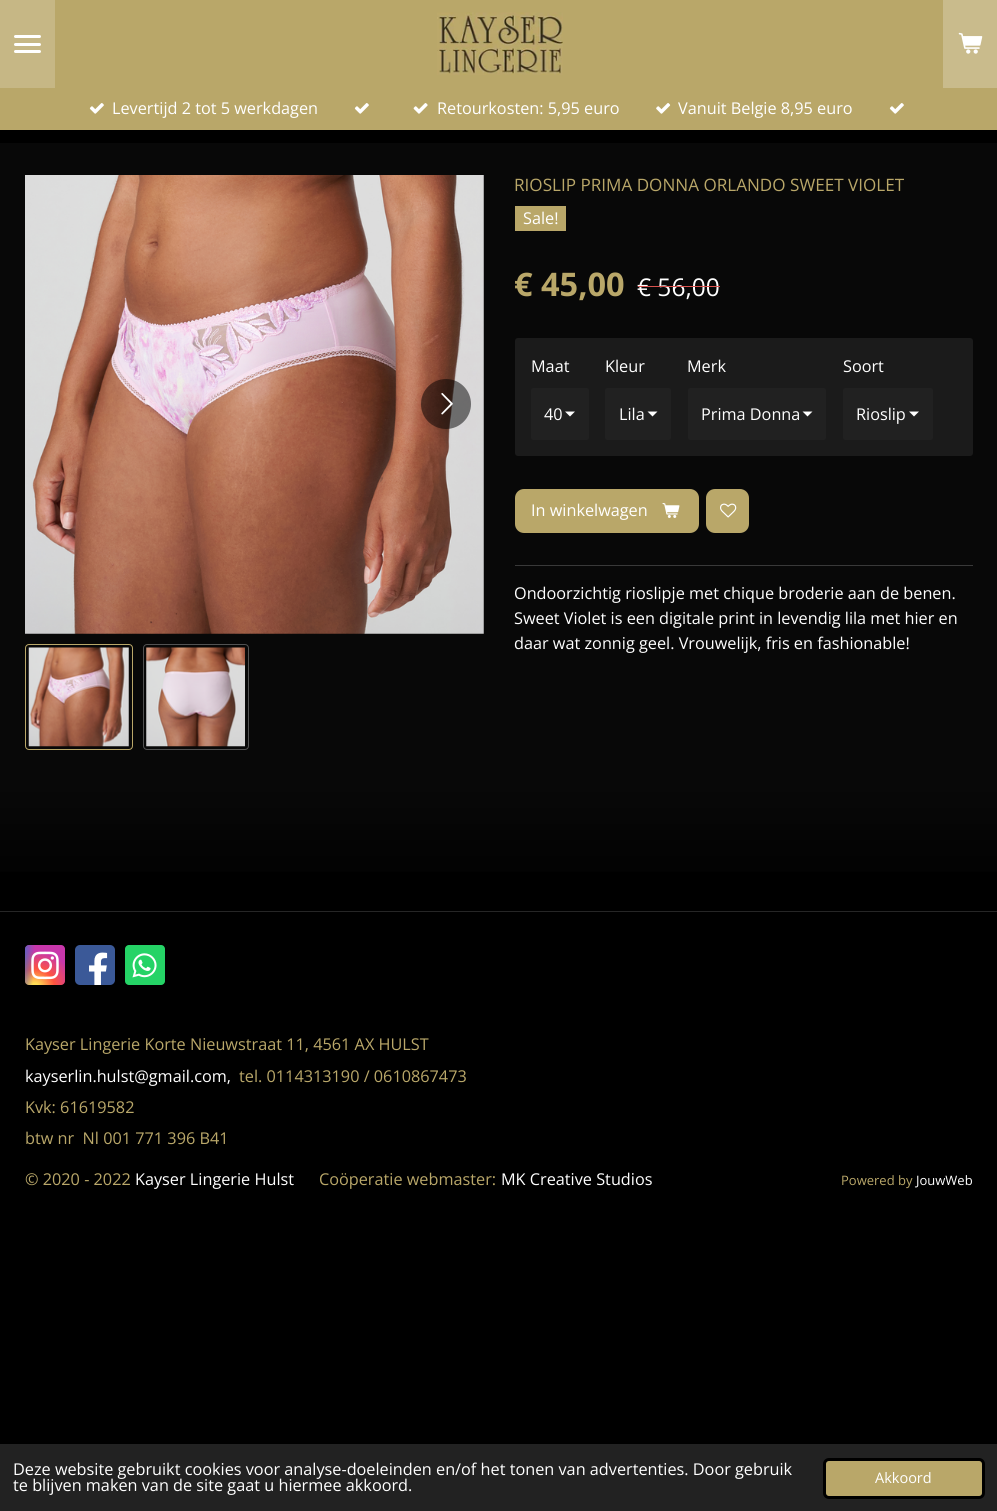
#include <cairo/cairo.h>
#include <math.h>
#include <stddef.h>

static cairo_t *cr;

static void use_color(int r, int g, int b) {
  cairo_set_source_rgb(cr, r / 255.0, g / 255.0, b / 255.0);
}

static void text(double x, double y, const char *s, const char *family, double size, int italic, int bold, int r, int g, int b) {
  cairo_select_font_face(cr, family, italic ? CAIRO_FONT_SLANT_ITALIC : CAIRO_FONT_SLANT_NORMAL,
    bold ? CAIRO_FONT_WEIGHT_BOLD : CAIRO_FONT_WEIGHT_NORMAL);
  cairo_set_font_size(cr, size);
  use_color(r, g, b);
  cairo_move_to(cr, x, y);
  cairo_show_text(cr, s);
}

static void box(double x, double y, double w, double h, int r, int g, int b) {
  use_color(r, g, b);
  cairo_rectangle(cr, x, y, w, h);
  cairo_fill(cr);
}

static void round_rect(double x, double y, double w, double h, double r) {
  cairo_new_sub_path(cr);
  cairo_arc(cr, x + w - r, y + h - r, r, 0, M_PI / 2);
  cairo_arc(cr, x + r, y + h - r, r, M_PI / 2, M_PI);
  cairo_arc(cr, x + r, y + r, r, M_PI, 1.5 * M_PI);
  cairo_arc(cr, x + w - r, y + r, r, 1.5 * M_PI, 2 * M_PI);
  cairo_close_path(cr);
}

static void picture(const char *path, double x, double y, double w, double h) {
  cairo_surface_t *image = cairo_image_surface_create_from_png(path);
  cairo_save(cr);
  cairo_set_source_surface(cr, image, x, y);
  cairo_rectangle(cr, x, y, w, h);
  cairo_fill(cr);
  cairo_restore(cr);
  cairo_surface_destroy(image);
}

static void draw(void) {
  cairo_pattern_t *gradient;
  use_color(0, 0, 0);
  cairo_paint(cr);
  box(0, 0, 55, 88, 198, 183, 133);
  use_color(255, 255, 255);
  round_rect(14, 43, 27, 3, 1.5);
  cairo_fill(cr);
  round_rect(14, 35, 27, 3, 1.5);
  cairo_fill(cr);
  round_rect(14, 50, 27, 3, 1.5);
  cairo_fill(cr);
  box(55, 0, 888, 88, 185, 167, 105);
  picture("img_01.png", 437, 12, 126, 63);
  box(943, 0, 54, 88, 201, 187, 140);
  picture("img_02.png", 958, 32, 25, 22);
  box(0, 88, 997, 42, 185, 167, 105);
  picture("img_03.png", 89, 103, 15, 11);
  picture("img_03.png", 354, 103, 15, 11);
  picture("img_04.png", 413, 103, 15, 11);
  picture("img_05.png", 656, 103, 15, 11);
  picture("img_03.png", 889, 103, 15, 11);
  box(0, 143, 997, 643, 8, 8, 8);
  picture("img_06.png", 25, 175, 459, 459);
  cairo_set_source_rgba(cr, 0, 0, 0, 0.5);
  cairo_arc(cr, 446, 404, 25, 0, 2 * M_PI);
  cairo_fill(cr);
  picture("img_07.png", 441, 393, 12, 22);
  round_rect(25.5, 644.5, 107, 105, 3.5);
  use_color(185, 167, 105);
  cairo_set_line_width(cr, 1);
  cairo_stroke(cr);
  picture("img_08.png", 28, 647, 101, 100);
  round_rect(143.5, 644.5, 105, 105, 3.5);
  use_color(82, 82, 82);
  cairo_stroke(cr);
  picture("img_09.png", 146, 647, 99, 100);
  box(515, 206, 51, 25, 185, 167, 105);
  use_color(27, 27, 27);
  round_rect(515, 338, 458, 118, 3);
  cairo_fill(cr);
  use_color(33, 33, 33);
  round_rect(531, 388, 58, 52, 2.5);
  cairo_fill(cr);
  use_color(255, 255, 255);
  cairo_new_path(cr);
  cairo_move_to(cr, 570, 416.5);
  cairo_line_to(cr, 565, 411.5);
  cairo_line_to(cr, 575, 411.5);
  cairo_close_path(cr);
  cairo_fill(cr);
  use_color(33, 33, 33);
  round_rect(605, 388, 66, 52, 2.5);
  cairo_fill(cr);
  use_color(255, 255, 255);
  cairo_new_path(cr);
  cairo_move_to(cr, 652.5, 416.5);
  cairo_line_to(cr, 647.5, 411.5);
  cairo_line_to(cr, 657.5, 411.5);
  cairo_close_path(cr);
  cairo_fill(cr);
  use_color(33, 33, 33);
  round_rect(688, 388, 138, 52, 2.5);
  cairo_fill(cr);
  use_color(255, 255, 255);
  cairo_new_path(cr);
  cairo_move_to(cr, 807.5, 416.5);
  cairo_line_to(cr, 802.5, 411.5);
  cairo_line_to(cr, 812.5, 411.5);
  cairo_close_path(cr);
  cairo_fill(cr);
  use_color(33, 33, 33);
  round_rect(843, 388, 90, 52, 2.5);
  cairo_fill(cr);
  use_color(255, 255, 255);
  cairo_new_path(cr);
  cairo_move_to(cr, 914, 416.5);
  cairo_line_to(cr, 909, 411.5);
  cairo_line_to(cr, 919, 411.5);
  cairo_close_path(cr);
  cairo_fill(cr);
  use_color(185, 167, 105);
  round_rect(515, 489, 184, 44, 9);
  cairo_fill(cr);
  picture("img_10.png", 662, 503, 18, 15);
  round_rect(706, 489, 43, 44, 9);
  cairo_fill(cr);
  picture("img_11.png", 720, 503, 17, 15);
  box(515, 565, 458, 1, 57, 57, 57);
  gradient = cairo_pattern_create_linear(499, 786, 499, 911);
  cairo_pattern_add_color_stop_rgba(gradient, 0, 0.031, 0.031, 0.031, 1);
  cairo_pattern_add_color_stop_rgba(gradient, 1, 0, 0, 0, 1);
  cairo_set_source(cr, gradient);
  cairo_pattern_destroy(gradient);
  cairo_rectangle(cr, 0, 786, 997, 86);
  cairo_fill(cr);
  box(0, 911, 997, 1, 38, 38, 38);
  gradient = cairo_pattern_create_radial(0, 0, 0, 0, 0, 1);
  cairo_pattern_set_matrix(gradient, &(cairo_matrix_t){1.0 / 39, 0, 0, 1.0 / 36, -1.0 * 35 / 39, -1.0 * 987 / 36});
  cairo_pattern_add_color_stop_rgba(gradient, 0, 1, 0.867, 0.333, 1);
  cairo_pattern_add_color_stop_rgba(gradient, 0.1, 1, 0.867, 0.333, 1);
  cairo_pattern_add_color_stop_rgba(gradient, 0.5, 1, 0.329, 0.243, 1);
  cairo_pattern_add_color_stop_rgba(gradient, 1, 0.784, 0.216, 0.671, 1);
  cairo_set_source(cr, gradient);
  cairo_pattern_destroy(gradient);
  round_rect(25, 945, 40, 40, 4);
  cairo_fill(cr);
  gradient = cairo_pattern_create_radial(0, 0, 0, 0, 0, 1);
  cairo_pattern_set_matrix(gradient, &(cairo_matrix_t){1.0 / 17, 0, 0, 1.0 / 72, -1.0 * 18 / 17, -1.0 * 948 / 72});
  cairo_pattern_add_color_stop_rgba(gradient, 0, 0.216, 0.443, 0.784, 1);
  cairo_pattern_add_color_stop_rgba(gradient, 0.13, 0.216, 0.443, 0.784, 1);
  cairo_pattern_add_color_stop_rgba(gradient, 1, 0.216, 0.443, 0.784, 0);
  cairo_set_source(cr, gradient);
  cairo_pattern_destroy(gradient);
  round_rect(25, 945, 40, 40, 4);
  cairo_fill(cr);
  picture("img_12.png", 31, 951, 28, 29);
  use_color(59, 89, 152);
  round_rect(75, 945, 40, 40, 5);
  cairo_fill(cr);
  picture("img_13.png", 89, 952, 19, 33);
  use_color(37, 211, 102);
  round_rect(125, 945, 40, 40, 4);
  cairo_fill(cr);
  picture("img_14.png", 132, 953, 25, 25);
  box(0, 1444, 997, 67, 34, 34, 34);
  use_color(185, 167, 105);
  round_rect(824.5, 1459.5, 159, 38, 4.5);
  cairo_fill_preserve(cr);
  use_color(0, 0, 0);
  cairo_set_line_width(cr, 3);
  cairo_stroke(cr);
  text(112, 114, "Levertijd 2 tot 5 werkdagen", "Open Sans", 16.25, 0, 0, 255, 255, 255);
  text(437, 114, "Retourkosten: 5,95 euro", "Open Sans", 16.25, 0, 0, 255, 255, 255);
  text(678, 114, "Vanuit Belgie 8,95 euro", "Open Sans", 16.25, 0, 0, 255, 255, 255);
  text(514, 191, "RIOSLIP PRIMA DONNA ORLANDO SWEET VIOLET", "Open Sans", 17.1, 0, 0, 185, 167, 105);
  text(523, 224, "Sale!", "Open Sans", 16.25, 0, 0, 255, 255, 255);
  text(514, 296, "€ 45,00", "Open Sans", 32.5, 0, 1, 185, 167, 105);
  text(637, 296, "€ 56,00", "Open Sans", 24.5, 0, 0, 255, 255, 255);
  box(638, 286, 82, 1, 217, 83, 79);
  text(531, 372, "Maat", "Open Sans", 16.25, 0, 0, 255, 255, 255);
  text(544, 420, "40", "Open Sans", 16.25, 0, 0, 255, 255, 255);
  text(605, 372, "Kleur", "Open Sans", 16.25, 0, 0, 255, 255, 255);
  text(619, 420, "Lila", "Open Sans", 16.25, 0, 0, 255, 255, 255);
  text(687, 372, "Merk", "Open Sans", 16.25, 0, 0, 255, 255, 255);
  text(701, 420, "Prima Donna", "Open Sans", 16.25, 0, 0, 255, 255, 255);
  text(843, 372, "Soort", "Open Sans", 16.25, 0, 0, 255, 255, 255);
  text(856, 420, "Rioslip", "Open Sans", 16.25, 0, 0, 255, 255, 255);
  text(531, 516, "In winkelwagen", "Open Sans", 16.25, 0, 0, 255, 255, 255);
  text(514, 599, "Ondoorzichtig rioslipje met chique broderie aan de benen.", "Open Sans", 16.25, 0, 0, 255, 255, 255);
  text(514, 624, "Sweet Violet is een digitale print in levendig lila met hier en", "Open Sans", 16.25, 0, 0, 255, 255, 255);
  text(514, 649, "daar wat zonnig geel. Vrouwelijk, fris en fashionable!", "Open Sans", 16.25, 0, 0, 255, 255, 255);
  text(25, 1050, "Kayser Lingerie Korte Nieuwstraat 11, 4561 AX HULST", "Open Sans", 16.25, 0, 0, 185, 167, 105);
  text(25, 1082, "kayserlin.hulst@gmail.com,", "Open Sans", 16.25, 0, 0, 255, 255, 255);
  text(239, 1082, "tel. 0114313190 / 0610867473", "Open Sans", 16.25, 0, 0, 185, 167, 105);
  text(25, 1113, "Kvk: 61619582", "Open Sans", 16.25, 0, 0, 185, 167, 105);
  text(25, 1144, "btw nr  Nl 001 771 396 B41", "Open Sans", 16.25, 0, 0, 185, 167, 105);
  text(25, 1185, "© 2020 - 2022", "Open Sans", 16.25, 0, 0, 185, 167, 105);
  text(135, 1185, "Kayser Lingerie Hulst", "Open Sans", 16.25, 0, 0, 255, 255, 255);
  text(319, 1185, "Coöperatie webmaster:", "Open Sans", 16.25, 0, 0, 185, 167, 105);
  text(501, 1185, "MK Creative Studios", "Open Sans", 16.25, 0, 0, 255, 255, 255);
  text(841, 1185, "Powered by", "Open Sans", 13, 0, 0, 185, 167, 105);
  text(916, 1185, "JouwWeb", "Open Sans", 13, 0, 0, 255, 255, 255);
  text(13, 1475, "Deze website gebruikt cookies voor analyse-doeleinden en/of het tonen van advertenties. Door gebruik", "Open Sans", 16.25, 0, 0, 255, 255, 255);
  text(13, 1491, "te blijven maken van de site gaat u hiermee akkoord.", "Open Sans", 16.25, 0, 0, 255, 255, 255);
  text(875, 1483, "Akkoord", "Open Sans", 14.5, 0, 0, 255, 255, 255);
}

int main(void) {
  cairo_surface_t *surface = cairo_image_surface_create(CAIRO_FORMAT_RGB24, 997, 1511);
  cr = cairo_create(surface);
  cairo_font_options_t *options = cairo_font_options_create();
  cairo_font_options_set_hint_metrics(options, CAIRO_HINT_METRICS_OFF);
  cairo_font_options_set_hint_style(options, CAIRO_HINT_STYLE_NONE);
  cairo_set_font_options(cr, options);
  cairo_set_miter_limit(cr, 4);
  draw();
  cairo_surface_write_to_png(surface, "out.png");
  cairo_font_options_destroy(options);
  cairo_destroy(cr);
  cairo_surface_destroy(surface);
  return 0;
}
